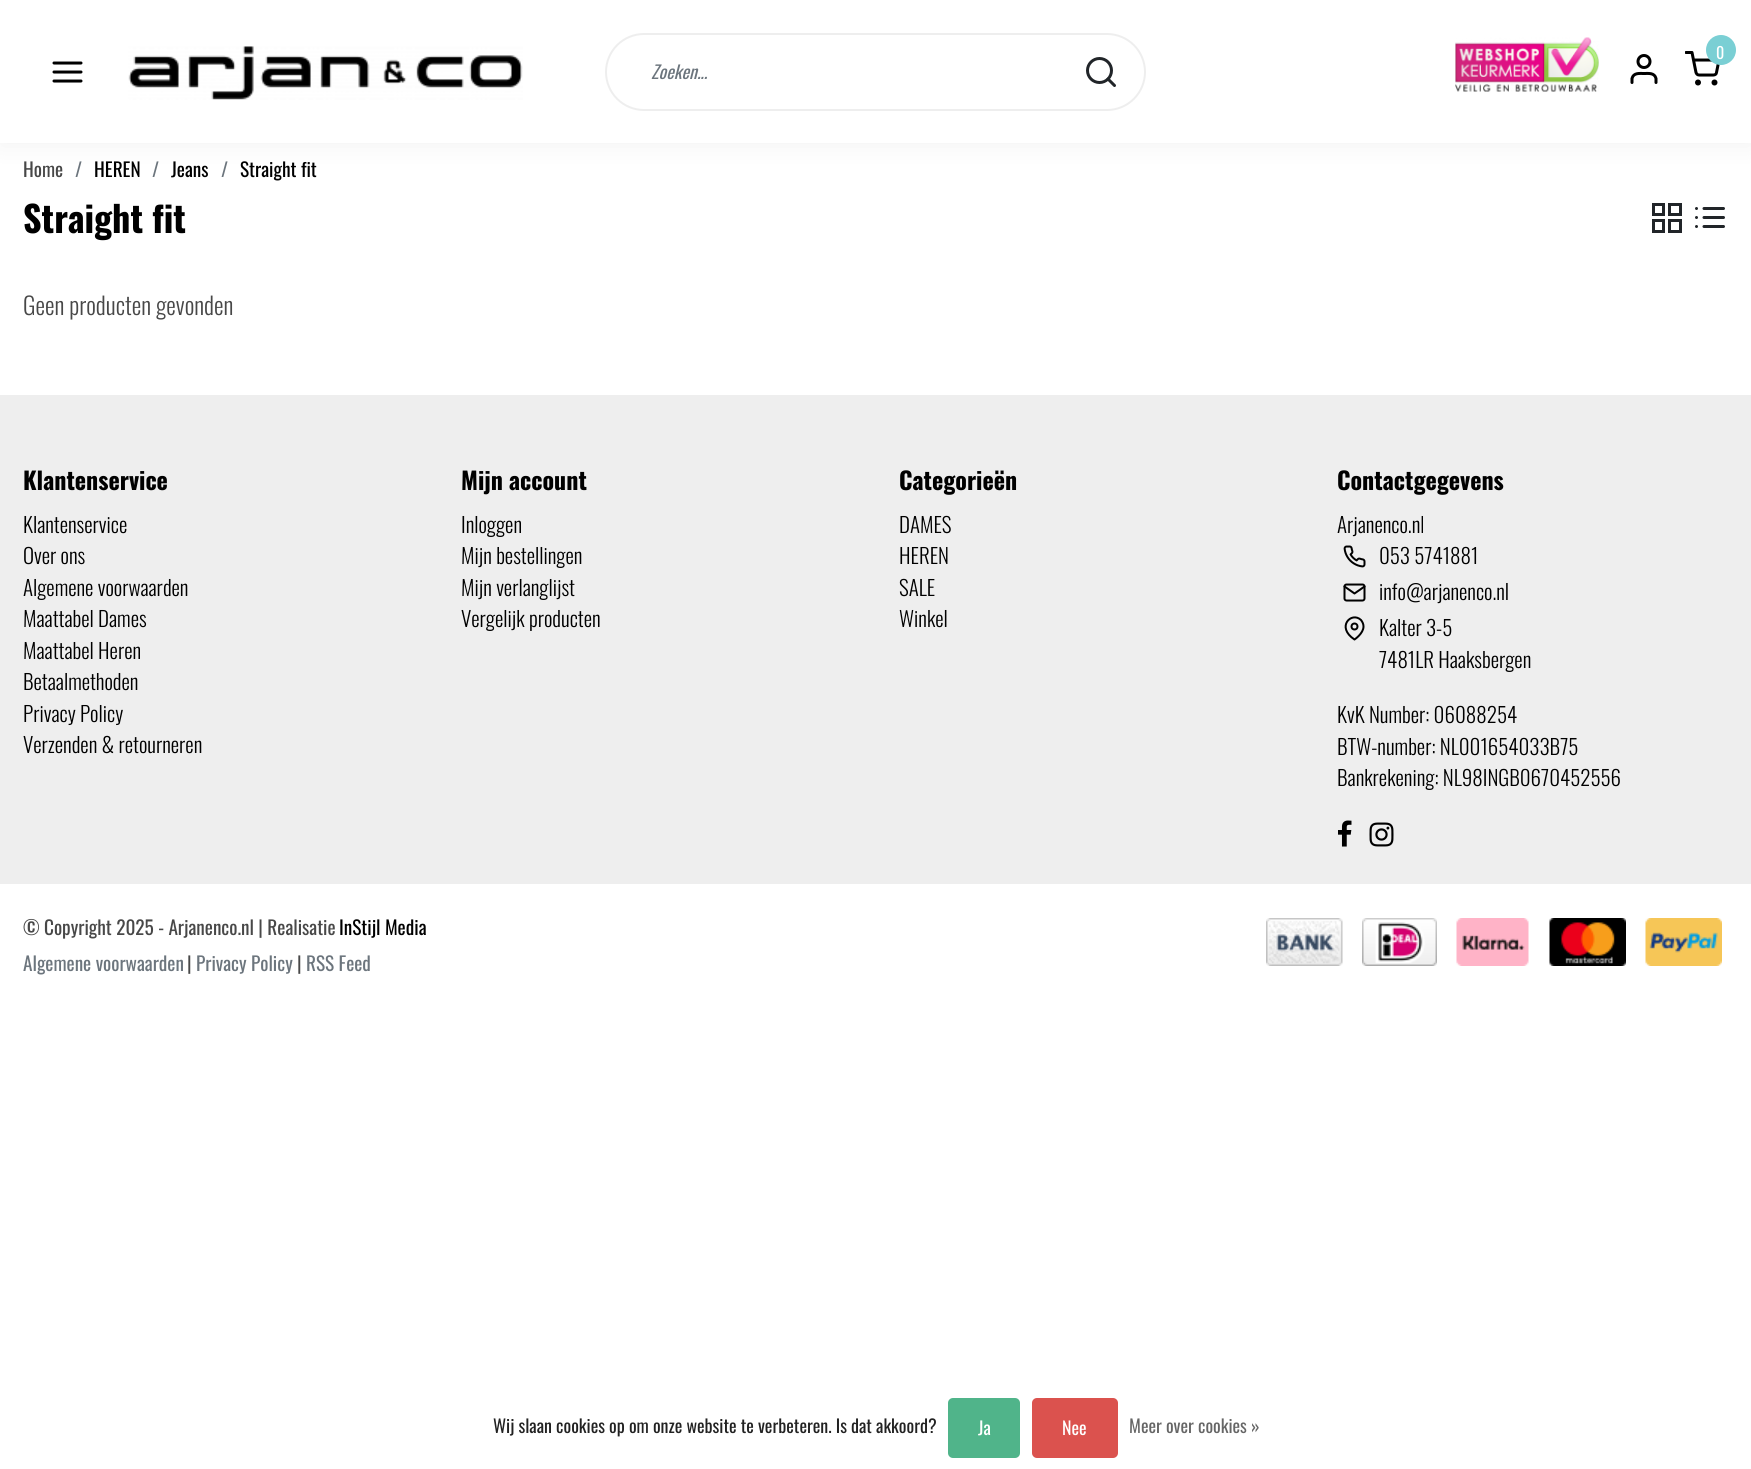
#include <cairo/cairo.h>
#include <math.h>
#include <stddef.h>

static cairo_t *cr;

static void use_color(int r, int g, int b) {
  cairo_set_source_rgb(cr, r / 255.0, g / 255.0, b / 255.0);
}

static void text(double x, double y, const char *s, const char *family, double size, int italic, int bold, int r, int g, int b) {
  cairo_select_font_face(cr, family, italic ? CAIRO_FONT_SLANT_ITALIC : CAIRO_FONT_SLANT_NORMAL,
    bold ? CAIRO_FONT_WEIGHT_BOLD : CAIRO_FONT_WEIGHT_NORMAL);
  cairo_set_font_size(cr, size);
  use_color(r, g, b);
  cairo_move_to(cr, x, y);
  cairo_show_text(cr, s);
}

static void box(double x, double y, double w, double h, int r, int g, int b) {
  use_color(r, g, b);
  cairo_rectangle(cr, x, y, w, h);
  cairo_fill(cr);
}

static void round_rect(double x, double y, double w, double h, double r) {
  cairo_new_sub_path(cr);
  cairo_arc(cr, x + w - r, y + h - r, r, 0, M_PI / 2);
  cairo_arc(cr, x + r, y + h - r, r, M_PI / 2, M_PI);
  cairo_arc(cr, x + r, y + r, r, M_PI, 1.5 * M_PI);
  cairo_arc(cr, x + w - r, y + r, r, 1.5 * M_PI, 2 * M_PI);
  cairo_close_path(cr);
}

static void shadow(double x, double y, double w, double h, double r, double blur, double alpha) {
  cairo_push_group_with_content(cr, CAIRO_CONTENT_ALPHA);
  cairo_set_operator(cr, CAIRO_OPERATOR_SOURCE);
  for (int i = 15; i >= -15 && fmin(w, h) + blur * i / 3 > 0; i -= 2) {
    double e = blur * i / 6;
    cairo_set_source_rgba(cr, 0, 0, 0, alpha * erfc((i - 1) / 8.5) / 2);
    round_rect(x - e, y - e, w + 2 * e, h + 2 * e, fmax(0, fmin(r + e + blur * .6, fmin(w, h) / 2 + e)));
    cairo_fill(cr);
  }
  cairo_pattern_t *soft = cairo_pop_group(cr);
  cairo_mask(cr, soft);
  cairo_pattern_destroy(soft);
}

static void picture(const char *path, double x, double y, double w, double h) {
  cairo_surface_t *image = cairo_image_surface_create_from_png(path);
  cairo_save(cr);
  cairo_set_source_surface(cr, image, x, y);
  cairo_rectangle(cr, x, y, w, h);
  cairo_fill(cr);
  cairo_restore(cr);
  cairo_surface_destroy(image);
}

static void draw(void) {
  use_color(255, 255, 255);
  cairo_paint(cr);
  use_color(0, 0, 0);
  shadow(0, 3, 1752, 143, 0, 12, 0.05);
  box(0, 0, 1751, 143, 255, 255, 255);
  cairo_new_path(cr);
  cairo_move_to(cr, 54, 72);
  cairo_line_to(cr, 81, 72);
  cairo_move_to(cr, 54, 63);
  cairo_line_to(cr, 81, 63);
  cairo_move_to(cr, 54, 81);
  cairo_line_to(cr, 81, 81);
  use_color(0, 0, 0);
  cairo_set_line_width(cr, 3);
  cairo_set_line_cap(cr, CAIRO_LINE_CAP_ROUND);
  cairo_set_line_join(cr, CAIRO_LINE_JOIN_ROUND);
  cairo_stroke(cr);
  picture("img_01.png", 128, 46, 395, 54);
  round_rect(606, 34, 539, 76, 38);
  use_color(238, 238, 238);
  cairo_set_line_width(cr, 2);
  cairo_set_line_cap(cr, CAIRO_LINE_CAP_BUTT);
  cairo_set_line_join(cr, CAIRO_LINE_JOIN_MITER);
  cairo_stroke(cr);
  cairo_arc(cr, 1099.5, 70.5, 12, 0, 2 * M_PI);
  use_color(33, 37, 41);
  cairo_set_line_width(cr, 3);
  cairo_stroke(cr);
  cairo_new_path(cr);
  cairo_move_to(cr, 1114.5, 85.5);
  cairo_line_to(cr, 1108, 79);
  cairo_set_line_cap(cr, CAIRO_LINE_CAP_ROUND);
  cairo_set_line_join(cr, CAIRO_LINE_JOIN_ROUND);
  cairo_stroke(cr);
  picture("img_02.png", 1455, 37, 144, 55);
  cairo_save(cr);
  cairo_rectangle(cr, 1685, 51, 36, 36);
  cairo_clip(cr);
  cairo_new_path(cr);
  cairo_move_to(cr, 1686, 52.5);
  cairo_line_to(cr, 1692, 52.5);
  cairo_line_to(cr, 1696, 72.5);
  cairo_curve_to(cr, 1696.5, 74, 1697.5, 75, 1699, 75);
  cairo_line_to(cr, 1713.5, 75);
  cairo_curve_to(cr, 1715, 75, 1716.5, 74, 1716.5, 72.5);
  cairo_line_to(cr, 1719, 60);
  cairo_line_to(cr, 1693.5, 60);
  use_color(0, 0, 0);
  cairo_stroke(cr);
  cairo_restore(cr);
  use_color(122, 207, 212);
  cairo_arc(cr, 1721, 50, 15, 0, 2 * M_PI);
  cairo_fill(cr);
  cairo_arc(cr, 1698, 82.5, 1.5, 0, 2 * M_PI);
  use_color(0, 0, 0);
  cairo_set_line_cap(cr, CAIRO_LINE_CAP_BUTT);
  cairo_set_line_join(cr, CAIRO_LINE_JOIN_MITER);
  cairo_stroke(cr);
  cairo_arc(cr, 1714.5, 82.5, 1.5, 0, 2 * M_PI);
  cairo_stroke(cr);
  cairo_new_path(cr);
  cairo_move_to(cr, 1656, 82.5);
  cairo_line_to(cr, 1656, 78.5);
  cairo_curve_to(cr, 1654.5, 72.5, 1648.5, 73.5, 1644, 73.5);
  cairo_curve_to(cr, 1639.5, 73.5, 1633.5, 72.5, 1632, 78.5);
  cairo_line_to(cr, 1632, 82.5);
  cairo_set_line_cap(cr, CAIRO_LINE_CAP_ROUND);
  cairo_set_line_join(cr, CAIRO_LINE_JOIN_ROUND);
  cairo_stroke(cr);
  cairo_arc(cr, 1644, 61.5, 6, 0, 2 * M_PI);
  cairo_set_line_cap(cr, CAIRO_LINE_CAP_BUTT);
  cairo_set_line_join(cr, CAIRO_LINE_JOIN_MITER);
  cairo_stroke(cr);
  cairo_rectangle(cr, 1653.5, 204.5, 10, 10);
  use_color(33, 37, 41);
  cairo_stroke(cr);
  cairo_rectangle(cr, 1669.5, 204.5, 11, 10);
  cairo_stroke(cr);
  cairo_rectangle(cr, 1669.5, 220.5, 11, 11);
  cairo_stroke(cr);
  cairo_rectangle(cr, 1653.5, 220.5, 10, 11);
  cairo_stroke(cr);
  picture("img_03.png", 1695, 207, 30, 21);
  box(0, 395, 1751, 489, 238, 238, 238);
  picture("img_04.png", 1343, 545, 23, 23);
  picture("img_05.png", 1343, 583, 23, 19);
  cairo_new_path(cr);
  cairo_move_to(cr, 1363.5, 626.5);
  cairo_curve_to(cr, 1363.5, 633.5, 1354.5, 639.5, 1354.5, 639.5);
  cairo_curve_to(cr, 1335.5, 627, 1351.5, 611, 1361, 620);
  cairo_curve_to(cr, 1362.5, 622, 1363.5, 624, 1363.5, 626.5);
  cairo_close_path(cr);
  use_color(0, 0, 0);
  cairo_set_line_width(cr, 2);
  cairo_set_line_cap(cr, CAIRO_LINE_CAP_ROUND);
  cairo_set_line_join(cr, CAIRO_LINE_JOIN_ROUND);
  cairo_stroke(cr);
  cairo_arc(cr, 1354.5, 626.5, 3, 0, 2 * M_PI);
  cairo_set_line_cap(cr, CAIRO_LINE_CAP_BUTT);
  cairo_set_line_join(cr, CAIRO_LINE_JOIN_MITER);
  cairo_stroke(cr);
  picture("img_06.png", 1338, 820, 14, 27);
  picture("img_07.png", 1369, 822, 25, 25);
  picture("img_08.png", 1266, 918, 77, 48);
  picture("img_09.png", 1362, 918, 75, 48);
  picture("img_10.png", 1456, 918, 73, 48);
  picture("img_11.png", 1549, 918, 77, 48);
  picture("img_12.png", 1645, 918, 77, 48);
  use_color(80, 180, 138);
  round_rect(948, 1398, 72, 60, 5);
  cairo_fill(cr);
  use_color(219, 82, 78);
  round_rect(1032, 1398, 86, 60, 5);
  cairo_fill(cr);
  text(651, 79, "Zoeken...", "Oswald", 18, 1, 0, 108, 117, 125);
  text(1716, 59, "0", "Oswald", 16, 0, 0, 255, 255, 255);
  text(23, 177, "Home", "Oswald", 19.25, 0, 0, 72, 72, 72);
  text(75, 177, "/", "Oswald", 19.25, 0, 0, 108, 117, 125);
  text(94, 177, "HEREN", "Oswald", 19.25, 0, 0, 0, 0, 0);
  text(152, 177, "/", "Oswald", 19.25, 0, 0, 108, 117, 125);
  text(171, 177, "Jeans", "Oswald", 19.25, 0, 0, 0, 0, 0);
  text(221, 177, "/", "Oswald", 19.25, 0, 0, 108, 117, 125);
  text(240, 177, "Straight fit", "Oswald", 19.25, 0, 0, 0, 0, 0);
  text(23, 233, "Straight fit", "Oswald", 36, 0, 1, 0, 0, 0);
  text(23, 315, "Geen producten gevonden", "Oswald Light", 24, 0, 0, 72, 72, 72);
  text(23, 490, "Klantenservice", "Oswald", 24, 0, 1, 0, 0, 0);
  text(23, 533, "Klantenservice", "Oswald Light", 21, 0, 0, 0, 0, 0);
  text(23, 564, "Over ons", "Oswald Light", 21, 0, 0, 0, 0, 0);
  text(23, 596, "Algemene voorwaarden", "Oswald Light", 21, 0, 0, 0, 0, 0);
  text(23, 627, "Maattabel Dames", "Oswald Light", 21, 0, 0, 0, 0, 0);
  text(23, 659, "Maattabel Heren", "Oswald Light", 21, 0, 0, 0, 0, 0);
  text(23, 690, "Betaalmethoden", "Oswald Light", 21, 0, 0, 0, 0, 0);
  text(23, 722, "Privacy Policy", "Oswald Light", 21, 0, 0, 0, 0, 0);
  text(23, 753, "Verzenden & retourneren", "Oswald Light", 21, 0, 0, 0, 0, 0);
  text(461, 490, "Mijn account", "Oswald", 24, 0, 1, 0, 0, 0);
  text(461, 533, "Inloggen", "Oswald Light", 21, 0, 0, 0, 0, 0);
  text(461, 564, "Mijn bestellingen", "Oswald Light", 21, 0, 0, 0, 0, 0);
  text(461, 596, "Mijn verlanglijst", "Oswald Light", 21, 0, 0, 0, 0, 0);
  text(461, 627, "Vergelijk producten", "Oswald Light", 21, 0, 0, 0, 0, 0);
  text(899, 490, "Categorieën", "Oswald", 24, 0, 1, 0, 0, 0);
  text(899, 533, "DAMES", "Oswald Light", 21, 0, 0, 0, 0, 0);
  text(899, 564, "HEREN", "Oswald Light", 21, 0, 0, 0, 0, 0);
  text(899, 596, "SALE", "Oswald Light", 21, 0, 0, 0, 0, 0);
  text(899, 627, "Winkel", "Oswald Light", 21, 0, 0, 0, 0, 0);
  text(1337, 490, "Contactgegevens", "Oswald", 24, 0, 1, 0, 0, 0);
  text(1337, 533, "Arjanenco.nl", "Oswald Light", 21, 0, 0, 0, 0, 0);
  text(1379, 564, "053 5741881", "Oswald Light", 21, 0, 0, 0, 0, 0);
  text(1379, 600, "info@arjanenco.nl", "Oswald Light", 21, 0, 0, 0, 0, 0);
  text(1379, 636, "Kalter 3-5", "Oswald Light", 21, 0, 0, 0, 0, 0);
  text(1379, 668, "7481LR Haaksbergen", "Oswald Light", 21, 0, 0, 0, 0, 0);
  text(1337, 723, "KvK Number: 06088254", "Oswald Light", 21, 0, 0, 0, 0, 0);
  text(1337, 755, "BTW-number: NL001654033B75", "Oswald Light", 21, 0, 0, 0, 0, 0);
  text(1337, 786, "Bankrekening: NL98INGB0670452556", "Oswald Light", 21, 0, 0, 0, 0, 0);
  text(23, 935, "© Copyright 2025 - Arjanenco.nl | Realisatie", "Oswald", 19.25, 0, 0, 72, 72, 72);
  text(339, 935, "InStijl Media", "Oswald", 19.25, 0, 0, 0, 0, 0);
  text(23, 971, "Algemene voorwaarden", "Oswald", 19.25, 0, 0, 108, 117, 125);
  text(187, 971, "|", "Oswald", 19.25, 0, 0, 72, 72, 72);
  text(196, 971, "Privacy Policy", "Oswald", 19.25, 0, 0, 108, 117, 125);
  text(297, 971, "|", "Oswald", 19.25, 0, 0, 72, 72, 72);
  text(306, 971, "RSS Feed", "Oswald", 19.25, 0, 0, 108, 117, 125);
  text(493, 1433, "Wij slaan cookies op om onze website te verbeteren. Is dat akkoord?", "Oswald", 18, 0, 0, 34, 34, 34);
  text(978, 1435, "Ja", "Oswald", 18, 0, 0, 255, 255, 255);
  text(1062, 1435, "Nee", "Oswald", 18, 0, 0, 255, 255, 255);
  text(1129, 1433, "Meer over cookies »", "Oswald", 18, 0, 0, 102, 102, 102);
}

int main(void) {
  cairo_surface_t *surface = cairo_image_surface_create(CAIRO_FORMAT_RGB24, 1751, 1469);
  cr = cairo_create(surface);
  cairo_font_options_t *options = cairo_font_options_create();
  cairo_font_options_set_hint_metrics(options, CAIRO_HINT_METRICS_OFF);
  cairo_font_options_set_hint_style(options, CAIRO_HINT_STYLE_NONE);
  cairo_set_font_options(cr, options);
  cairo_set_miter_limit(cr, 4);
  draw();
  cairo_surface_write_to_png(surface, "out.png");
  cairo_font_options_destroy(options);
  cairo_destroy(cr);
  cairo_surface_destroy(surface);
  return 0;
}
